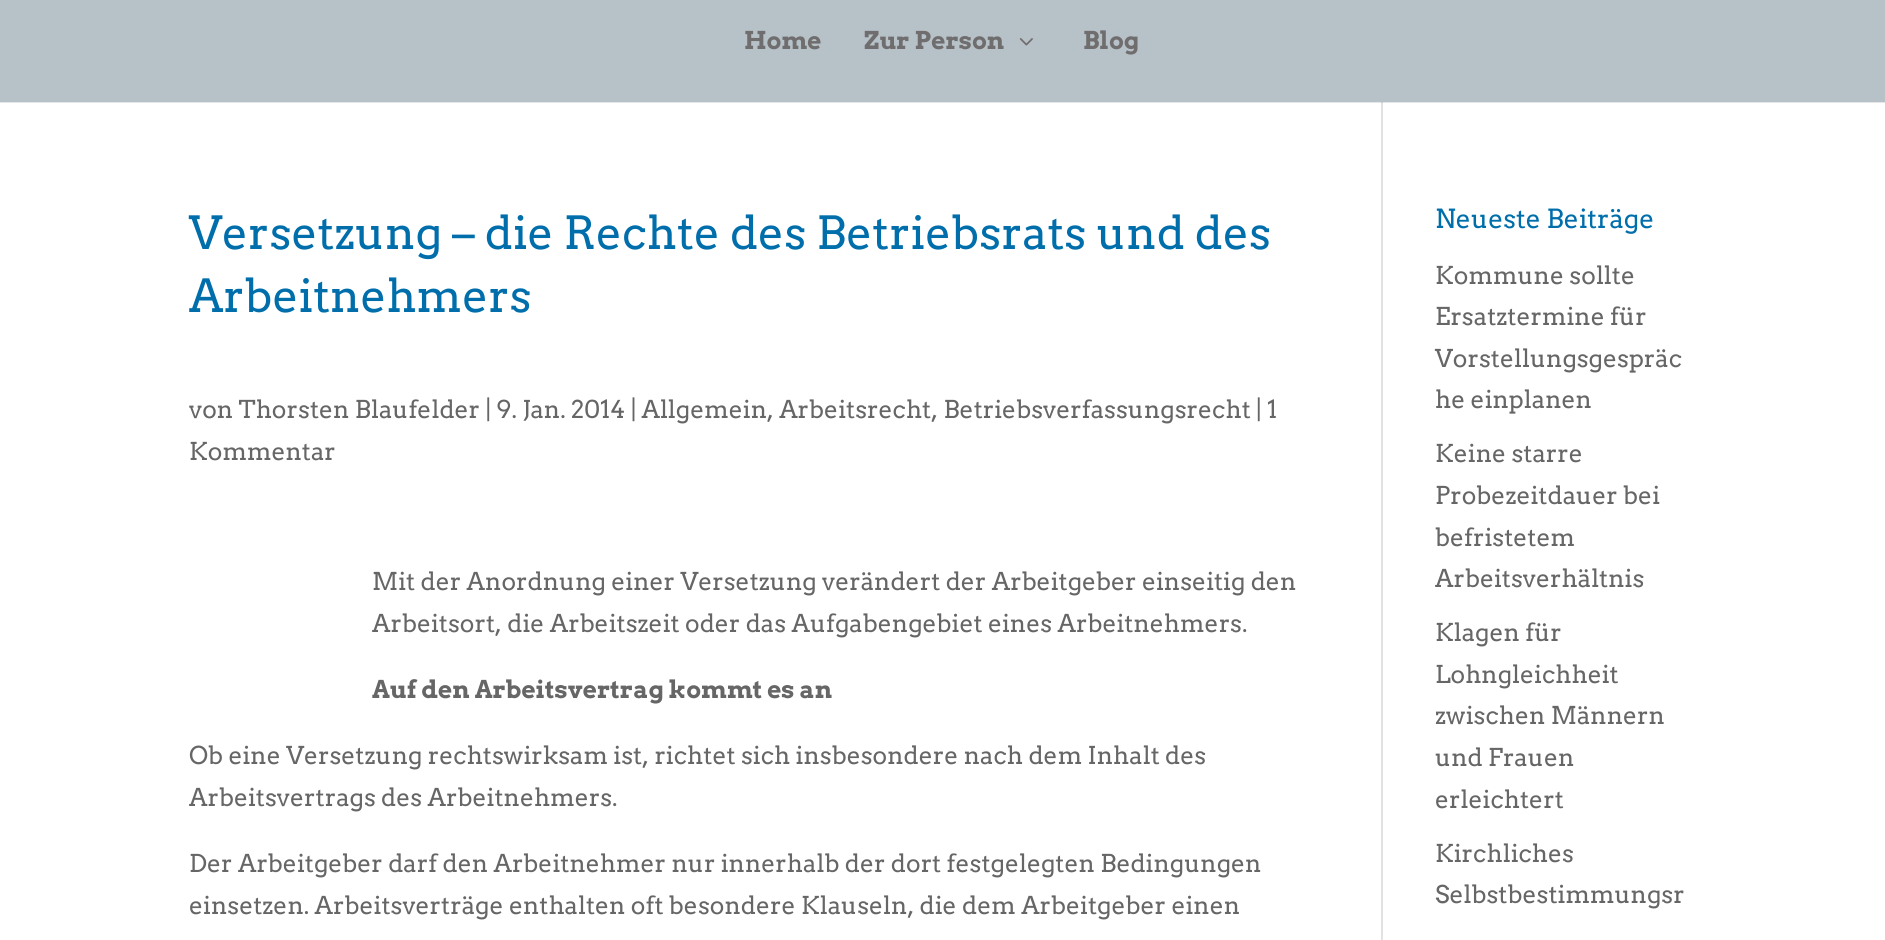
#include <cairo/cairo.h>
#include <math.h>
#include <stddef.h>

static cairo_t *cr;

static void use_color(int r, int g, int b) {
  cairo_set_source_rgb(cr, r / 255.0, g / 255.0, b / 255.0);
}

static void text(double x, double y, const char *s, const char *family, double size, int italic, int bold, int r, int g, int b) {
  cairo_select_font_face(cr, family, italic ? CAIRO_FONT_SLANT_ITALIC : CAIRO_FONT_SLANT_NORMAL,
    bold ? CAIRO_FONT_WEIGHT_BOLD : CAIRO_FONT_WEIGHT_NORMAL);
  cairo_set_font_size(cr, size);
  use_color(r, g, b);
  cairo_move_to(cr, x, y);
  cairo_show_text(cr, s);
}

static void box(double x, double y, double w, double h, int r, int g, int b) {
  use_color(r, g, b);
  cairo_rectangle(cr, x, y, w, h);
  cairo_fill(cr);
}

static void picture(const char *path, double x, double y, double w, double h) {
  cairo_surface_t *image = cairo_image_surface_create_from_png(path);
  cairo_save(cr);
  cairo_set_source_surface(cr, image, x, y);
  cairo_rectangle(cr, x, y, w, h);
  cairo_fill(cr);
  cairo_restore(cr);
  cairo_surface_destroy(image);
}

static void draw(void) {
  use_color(255, 255, 255);
  cairo_paint(cr);
  box(1381, 100, 2, 840, 226, 226, 226);
  cairo_set_source_rgba(cr, 0, 0, 0, 0.1);
  cairo_new_path(cr);
  cairo_move_to(cr, 0, 102);
  cairo_line_to(cr, 0, 103);
  cairo_line_to(cr, 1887, 103);
  cairo_line_to(cr, 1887, 2);
  cairo_line_to(cr, 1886, 2);
  cairo_line_to(cr, 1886, 102);
  cairo_close_path(cr);
  cairo_fill(cr);
  box(0, 0, 1885, 102, 183, 194, 200);
  picture("img_01.png", 1019, 38, 14, 8);
  text(744, 49, "Home", "Arvo", 24.5, 0, 1, 111, 109, 110);
  text(864, 49, "Zur Person", "Arvo", 24.5, 0, 1, 111, 109, 110);
  text(1083, 49, "Blog", "Arvo", 24.5, 0, 1, 111, 109, 110);
  text(189, 249, "Versetzung – die Rechte des Betriebsrats und des", "Arvo", 45.5, 0, 0, 0, 110, 171);
  text(189, 312, "Arbeitnehmers", "Arvo", 45.5, 0, 0, 0, 110, 171);
  text(189, 418, "von Thorsten Blaufelder | 9. Jan. 2014 | Allgemein, Arbeitsrecht, Betriebsverfassungsrecht | 1", "Arvo", 24.5, 0, 0, 102, 102, 102);
  text(189, 460, "Kommentar", "Arvo", 24.5, 0, 0, 102, 102, 102);
  text(372, 590, "Mit der Anordnung einer Versetzung verändert der Arbeitgeber einseitig den", "Arvo", 24.5, 0, 0, 102, 102, 102);
  text(372, 632, "Arbeitsort, die Arbeitszeit oder das Aufgabengebiet eines Arbeitnehmers.", "Arvo", 24.5, 0, 0, 102, 102, 102);
  text(372, 698, "Auf den Arbeitsvertrag kommt es an", "Arvo", 24.5, 0, 1, 102, 102, 102);
  text(189, 764, "Ob eine Versetzung rechtswirksam ist, richtet sich insbesondere nach dem Inhalt des", "Arvo", 24.5, 0, 0, 102, 102, 102);
  text(189, 806, "Arbeitsvertrags des Arbeitnehmers.", "Arvo", 24.5, 0, 0, 102, 102, 102);
  text(189, 872, "Der Arbeitgeber darf den Arbeitnehmer nur innerhalb der dort festgelegten Bedingungen", "Arvo", 24.5, 0, 0, 102, 102, 102);
  text(189, 914, "einsetzen. Arbeitsverträge enthalten oft besondere Klauseln, die dem Arbeitgeber einen", "Arvo", 24.5, 0, 0, 102, 102, 102);
  text(1435, 228, "Neueste Beiträge", "Arvo", 26.25, 0, 0, 0, 110, 171);
  text(1435, 284, "Kommune sollte", "Arvo", 24.5, 0, 0, 102, 102, 102);
  text(1435, 325, "Ersatztermine für", "Arvo", 24.5, 0, 0, 102, 102, 102);
  text(1435, 367, "Vorstellungsgespräc", "Arvo", 24.5, 0, 0, 102, 102, 102);
  text(1435, 408, "he einplanen", "Arvo", 24.5, 0, 0, 102, 102, 102);
  text(1435, 462, "Keine starre", "Arvo", 24.5, 0, 0, 102, 102, 102);
  text(1435, 504, "Probezeitdauer bei", "Arvo", 24.5, 0, 0, 102, 102, 102);
  text(1435, 546, "befristetem", "Arvo", 24.5, 0, 0, 102, 102, 102);
  text(1435, 587, "Arbeitsverhältnis", "Arvo", 24.5, 0, 0, 102, 102, 102);
  text(1435, 641, "Klagen für", "Arvo", 24.5, 0, 0, 102, 102, 102);
  text(1435, 683, "Lohngleichheit", "Arvo", 24.5, 0, 0, 102, 102, 102);
  text(1435, 724, "zwischen Männern", "Arvo", 24.5, 0, 0, 102, 102, 102);
  text(1435, 766, "und Frauen", "Arvo", 24.5, 0, 0, 102, 102, 102);
  text(1435, 808, "erleichtert", "Arvo", 24.5, 0, 0, 102, 102, 102);
  text(1435, 862, "Kirchliches", "Arvo", 24.5, 0, 0, 102, 102, 102);
  text(1435, 903, "Selbstbestimmungsr", "Arvo", 24.5, 0, 0, 102, 102, 102);
}

int main(void) {
  cairo_surface_t *surface = cairo_image_surface_create(CAIRO_FORMAT_RGB24, 1885, 940);
  cr = cairo_create(surface);
  cairo_font_options_t *options = cairo_font_options_create();
  cairo_font_options_set_hint_metrics(options, CAIRO_HINT_METRICS_OFF);
  cairo_font_options_set_hint_style(options, CAIRO_HINT_STYLE_NONE);
  cairo_set_font_options(cr, options);
  cairo_set_miter_limit(cr, 4);
  draw();
  cairo_surface_write_to_png(surface, "out.png");
  cairo_font_options_destroy(options);
  cairo_destroy(cr);
  cairo_surface_destroy(surface);
  return 0;
}
